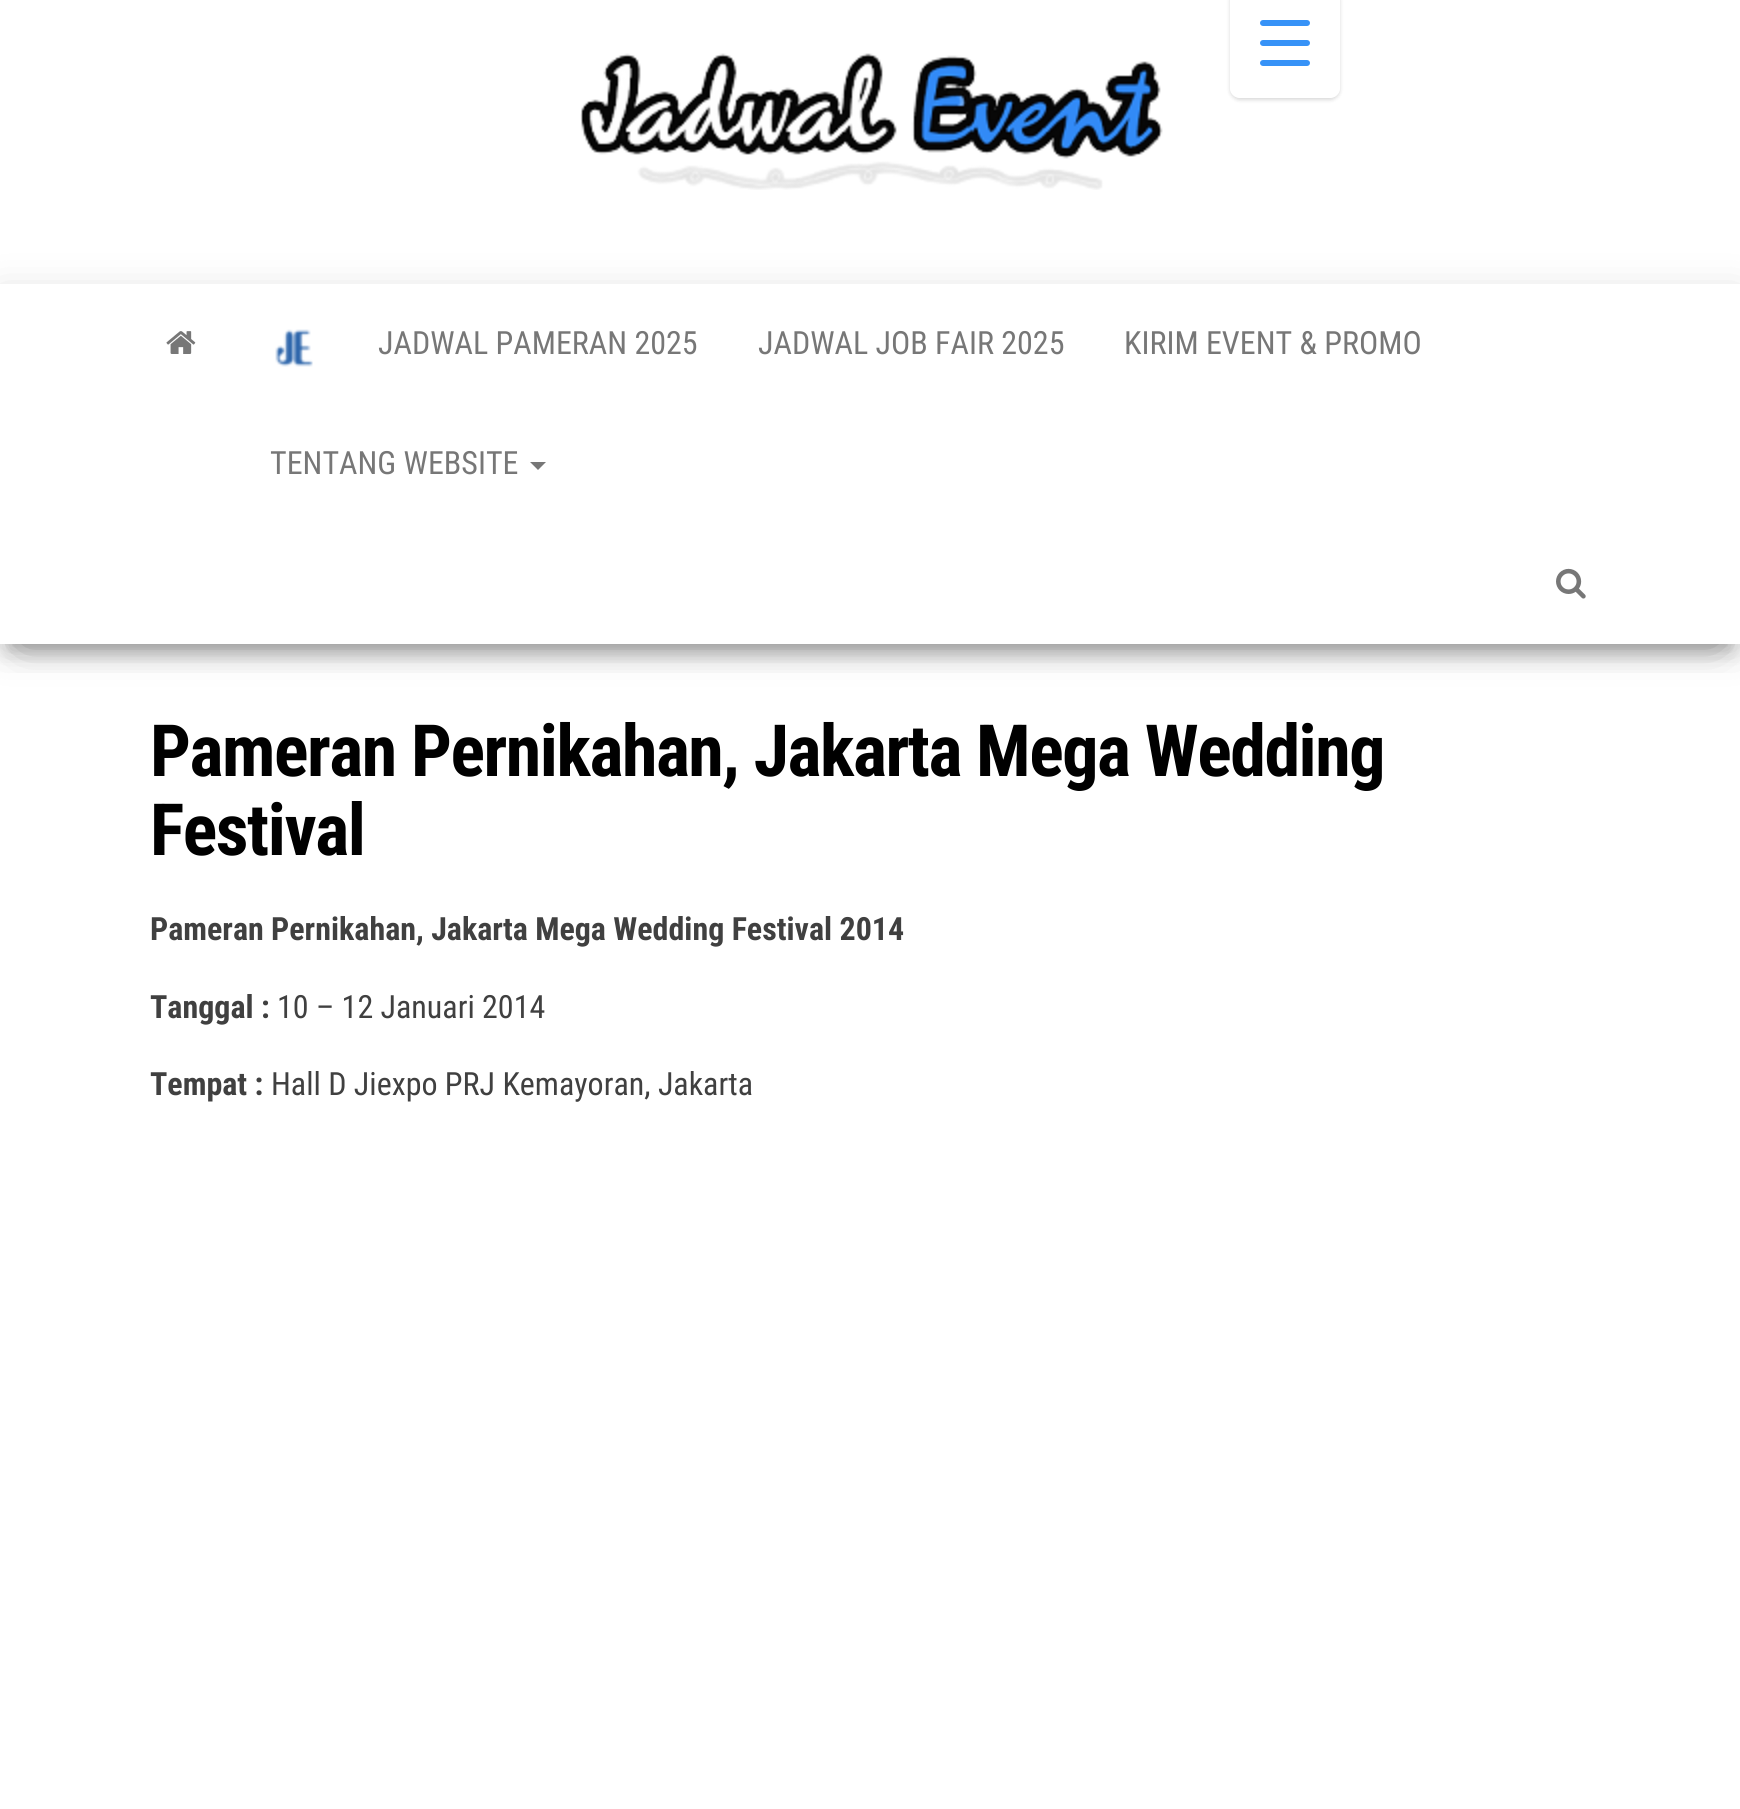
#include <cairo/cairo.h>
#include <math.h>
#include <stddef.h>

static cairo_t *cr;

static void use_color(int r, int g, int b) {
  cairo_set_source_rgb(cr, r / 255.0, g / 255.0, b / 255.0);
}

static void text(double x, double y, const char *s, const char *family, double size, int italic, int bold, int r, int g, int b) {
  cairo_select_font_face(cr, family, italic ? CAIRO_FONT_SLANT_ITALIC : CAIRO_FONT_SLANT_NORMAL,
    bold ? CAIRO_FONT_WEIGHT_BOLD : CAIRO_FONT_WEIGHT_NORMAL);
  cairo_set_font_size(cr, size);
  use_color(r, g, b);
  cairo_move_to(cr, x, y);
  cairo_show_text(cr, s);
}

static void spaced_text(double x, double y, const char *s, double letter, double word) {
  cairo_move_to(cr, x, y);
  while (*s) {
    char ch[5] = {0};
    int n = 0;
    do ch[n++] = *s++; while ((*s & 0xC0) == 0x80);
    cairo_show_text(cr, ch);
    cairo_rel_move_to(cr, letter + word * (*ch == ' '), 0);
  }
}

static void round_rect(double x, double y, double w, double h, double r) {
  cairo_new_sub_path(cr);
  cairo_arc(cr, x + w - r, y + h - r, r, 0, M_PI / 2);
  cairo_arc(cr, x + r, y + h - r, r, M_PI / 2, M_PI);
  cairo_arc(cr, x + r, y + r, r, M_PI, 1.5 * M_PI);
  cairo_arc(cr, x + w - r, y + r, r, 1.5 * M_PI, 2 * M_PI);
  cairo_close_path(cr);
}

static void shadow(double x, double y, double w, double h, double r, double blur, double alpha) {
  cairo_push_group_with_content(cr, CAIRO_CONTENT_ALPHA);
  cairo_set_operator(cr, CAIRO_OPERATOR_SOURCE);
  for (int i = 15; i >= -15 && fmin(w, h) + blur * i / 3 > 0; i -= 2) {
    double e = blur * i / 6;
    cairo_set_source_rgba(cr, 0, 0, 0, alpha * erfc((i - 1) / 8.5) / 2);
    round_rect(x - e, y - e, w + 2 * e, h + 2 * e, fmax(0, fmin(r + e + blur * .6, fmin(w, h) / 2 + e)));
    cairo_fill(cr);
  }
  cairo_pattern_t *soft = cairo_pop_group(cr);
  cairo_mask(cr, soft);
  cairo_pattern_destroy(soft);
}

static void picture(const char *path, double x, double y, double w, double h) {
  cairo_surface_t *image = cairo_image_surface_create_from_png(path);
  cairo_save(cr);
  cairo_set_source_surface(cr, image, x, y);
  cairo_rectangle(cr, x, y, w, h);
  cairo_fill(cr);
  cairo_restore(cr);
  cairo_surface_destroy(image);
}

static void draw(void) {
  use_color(255, 255, 255);
  cairo_paint(cr);
  picture("img_01.png", 580, 53, 583, 137);
  cairo_save(cr);
  cairo_set_fill_rule(cr, CAIRO_FILL_RULE_EVEN_ODD);
  cairo_new_path(cr);
  cairo_move_to(cr, 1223, 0);
  cairo_line_to(cr, 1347, 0);
  cairo_line_to(cr, 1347, 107);
  cairo_line_to(cr, 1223, 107);
  cairo_close_path(cr);
  cairo_move_to(cr, 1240, -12);
  cairo_line_to(cr, 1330, -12);
  cairo_curve_to(cr, 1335.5, -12, 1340, -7.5, 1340, -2);
  cairo_line_to(cr, 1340, 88);
  cairo_curve_to(cr, 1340, 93.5, 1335.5, 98, 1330, 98);
  cairo_line_to(cr, 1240, 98);
  cairo_curve_to(cr, 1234.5, 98, 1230, 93.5, 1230, 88);
  cairo_line_to(cr, 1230, -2);
  cairo_curve_to(cr, 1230, -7.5, 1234.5, -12, 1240, -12);
  cairo_close_path(cr);
  cairo_clip(cr);
  use_color(0, 0, 0);
  shadow(1230, -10, 110, 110, 10, 2, 0.15);
  cairo_restore(cr);
  use_color(54, 146, 247);
  round_rect(1260, 40, 50, 6, 3);
  cairo_fill(cr);
  round_rect(1260, 20, 50, 6, 3);
  cairo_fill(cr);
  round_rect(1260, 60, 50, 6, 3);
  cairo_fill(cr);
  cairo_save(cr);
  cairo_rectangle(cr, 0, 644, 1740, 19);
  cairo_clip(cr);
  use_color(0, 0, 0);
  shadow(10, 310, 1720, 340, 0, 10, 0.2);
  cairo_restore(cr);
  cairo_save(cr);
  cairo_set_fill_rule(cr, CAIRO_FILL_RULE_EVEN_ODD);
  cairo_new_path(cr);
  cairo_move_to(cr, 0, 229);
  cairo_line_to(cr, 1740, 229);
  cairo_line_to(cr, 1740, 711);
  cairo_line_to(cr, 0, 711);
  cairo_close_path(cr);
  cairo_move_to(cr, 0, 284);
  cairo_line_to(cr, 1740, 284);
  cairo_line_to(cr, 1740, 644);
  cairo_line_to(cr, 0, 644);
  cairo_close_path(cr);
  cairo_clip(cr);
  use_color(0, 0, 0);
  shadow(0, 290, 1740, 360, 0, 20, 0.12);
  cairo_restore(cr);
  cairo_save(cr);
  cairo_rectangle(cr, 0, 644, 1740, 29);
  cairo_clip(cr);
  use_color(0, 0, 0);
  shadow(24, 328, 1692, 312, 0, 20, 0.42);
  cairo_restore(cr);
  picture("img_02.png", 166, 331, 30, 23);
  picture("img_03.png", 275, 329, 38, 38);
  use_color(119, 119, 119);
  cairo_new_path(cr);
  cairo_move_to(cr, 530, 462);
  cairo_line_to(cr, 546, 462);
  cairo_line_to(cr, 538, 470);
  cairo_close_path(cr);
  cairo_fill(cr);
  picture("img_04.png", 1556, 568, 30, 31);
  text(378, 354, "JADWAL PAMERAN 2025", "Roboto Condensed", 32, 0, 0, 119, 119, 119);
  text(758, 354, "JADWAL JOB FAIR 2025", "Roboto Condensed", 32, 0, 0, 119, 119, 119);
  text(1124, 354, "KIRIM EVENT & PROMO", "Roboto Condensed", 32, 0, 0, 119, 119, 119);
  text(270, 474, "TENTANG WEBSITE", "Roboto Condensed", 32, 0, 0, 119, 119, 119);
  cairo_select_font_face(cr, "Roboto Condensed", CAIRO_FONT_SLANT_NORMAL, CAIRO_FONT_WEIGHT_BOLD);
  cairo_set_font_size(cr, 72);
  use_color(0, 0, 0);
  spaced_text(150, 776, "Pameran Pernikahan, Jakarta Mega Wedding", -1.45, 0);
  spaced_text(150, 855, "Festival", -1.45, 0);
  text(150, 940, "Pameran Pernikahan, Jakarta Mega Wedding Festival 2014", "Roboto Condensed", 32, 0, 1, 64, 64, 64);
  text(150, 1018, "Tanggal :", "Roboto Condensed", 32, 0, 1, 64, 64, 64);
  text(277, 1018, "10 – 12 Januari 2014", "Roboto Condensed", 32, 0, 0, 64, 64, 64);
  text(150, 1095, "Tempat :", "Roboto Condensed", 32, 0, 1, 64, 64, 64);
  text(271, 1095, "Hall D Jiexpo PRJ Kemayoran, Jakarta", "Roboto Condensed", 32, 0, 0, 64, 64, 64);
}

int main(void) {
  cairo_surface_t *surface = cairo_image_surface_create(CAIRO_FORMAT_RGB24, 1740, 1809);
  cr = cairo_create(surface);
  cairo_font_options_t *options = cairo_font_options_create();
  cairo_font_options_set_hint_metrics(options, CAIRO_HINT_METRICS_OFF);
  cairo_font_options_set_hint_style(options, CAIRO_HINT_STYLE_NONE);
  cairo_set_font_options(cr, options);
  cairo_set_miter_limit(cr, 4);
  draw();
  cairo_surface_write_to_png(surface, "out.png");
  cairo_font_options_destroy(options);
  cairo_destroy(cr);
  cairo_surface_destroy(surface);
  return 0;
}
